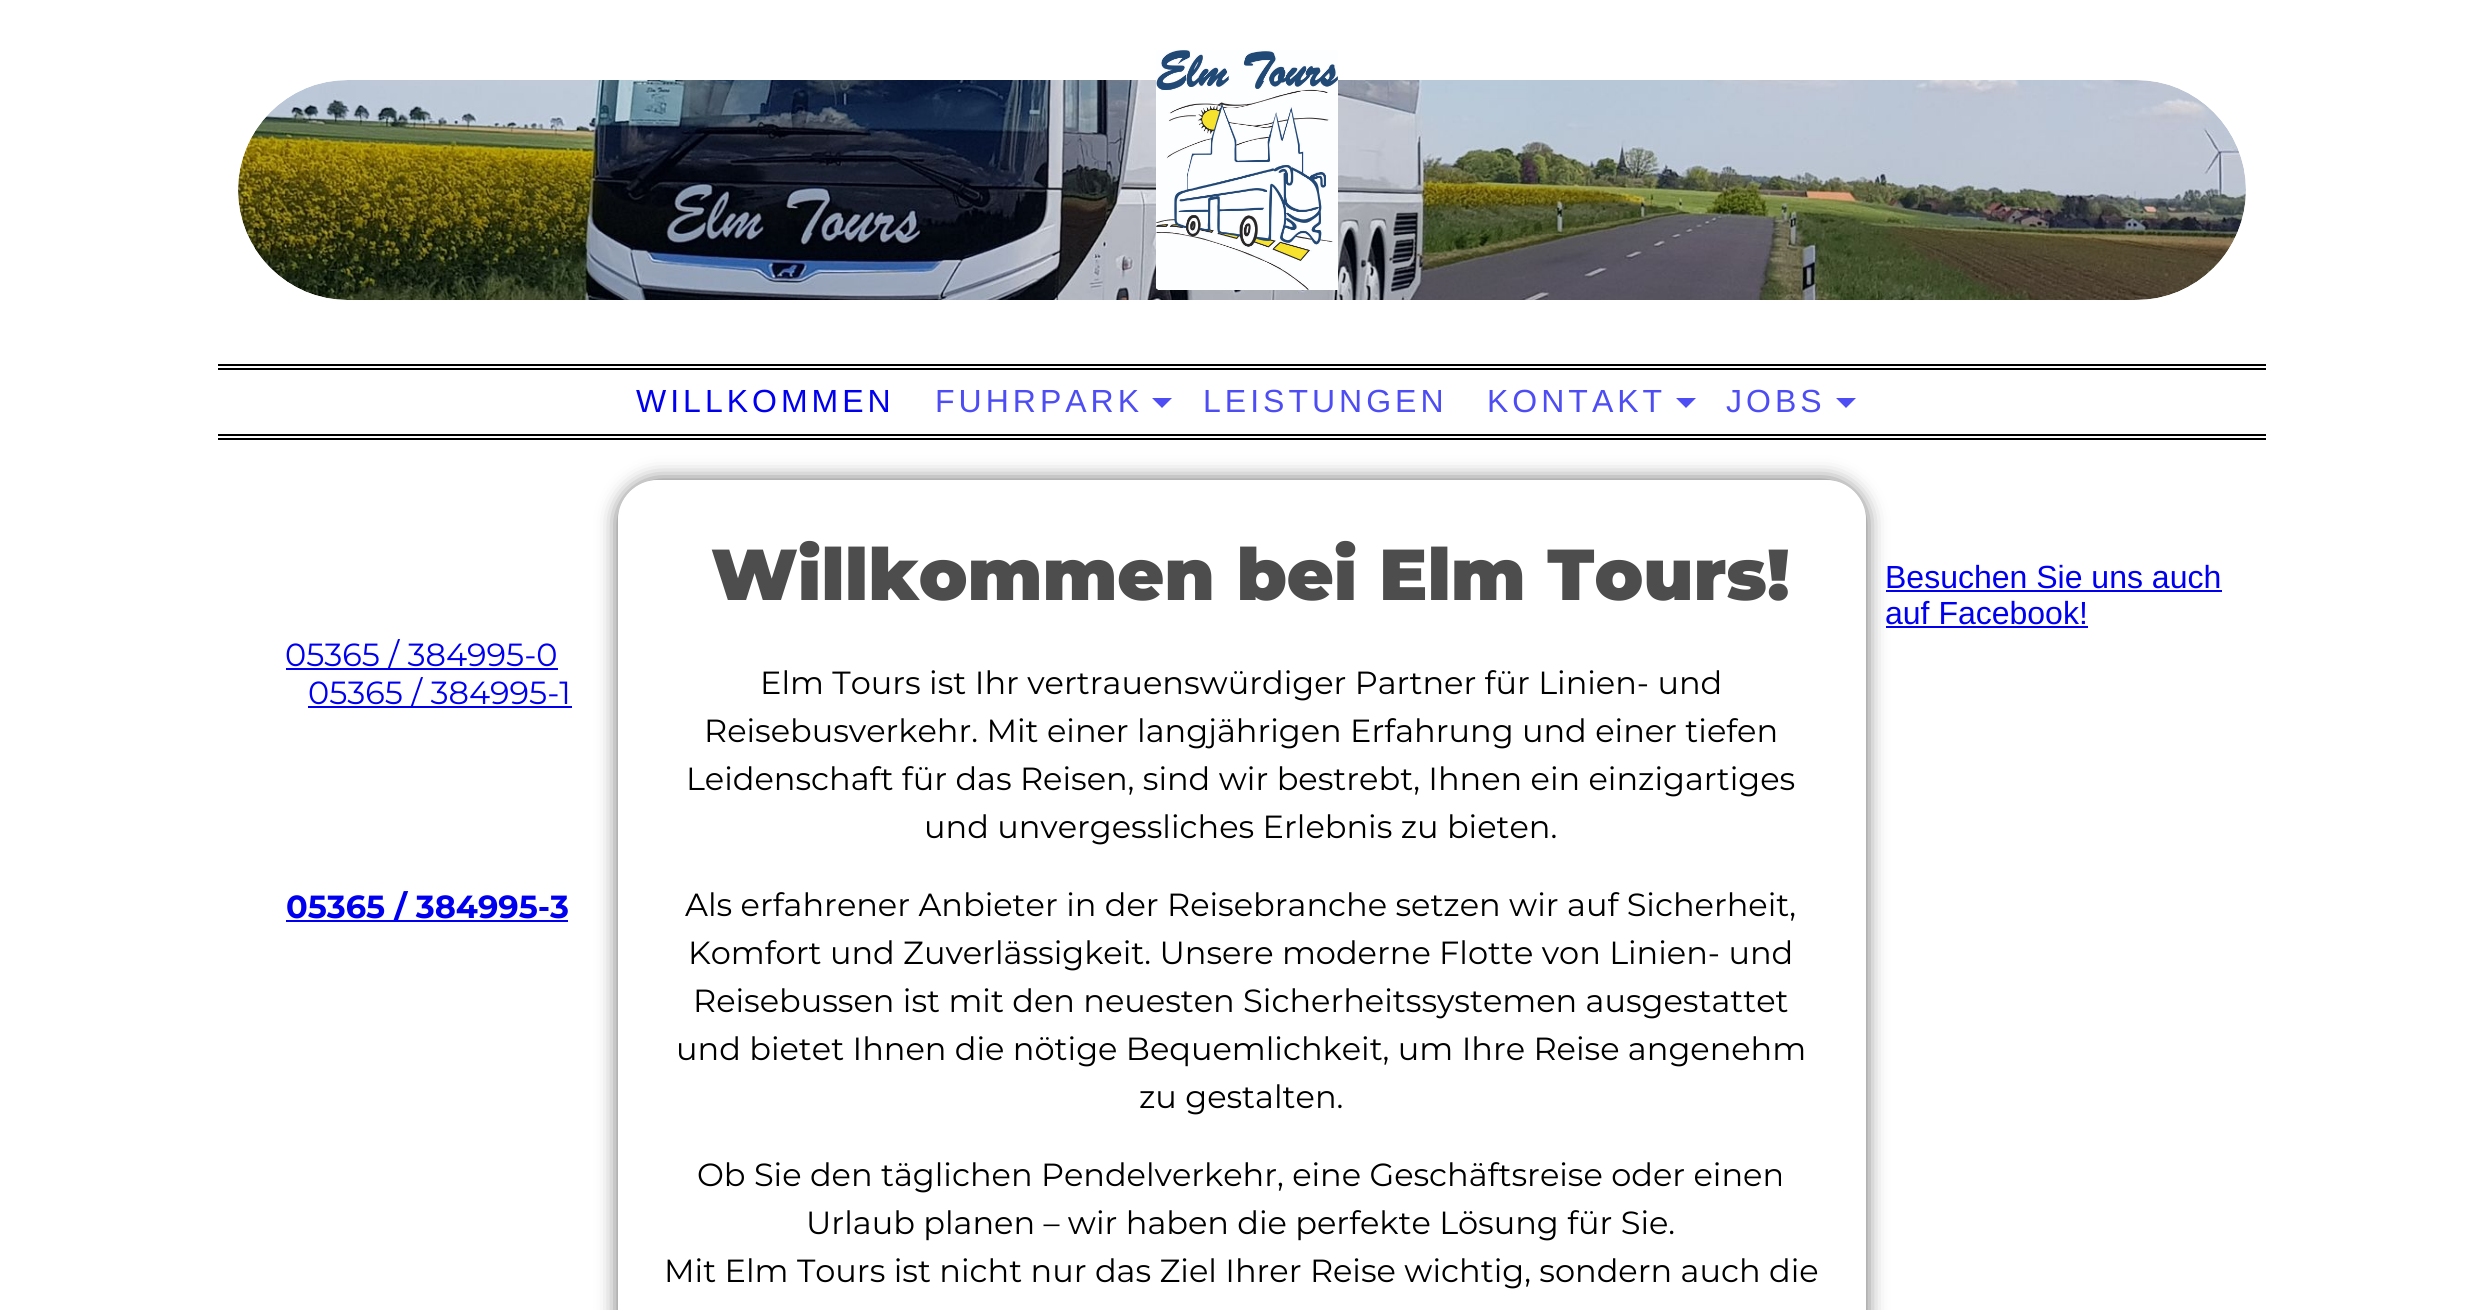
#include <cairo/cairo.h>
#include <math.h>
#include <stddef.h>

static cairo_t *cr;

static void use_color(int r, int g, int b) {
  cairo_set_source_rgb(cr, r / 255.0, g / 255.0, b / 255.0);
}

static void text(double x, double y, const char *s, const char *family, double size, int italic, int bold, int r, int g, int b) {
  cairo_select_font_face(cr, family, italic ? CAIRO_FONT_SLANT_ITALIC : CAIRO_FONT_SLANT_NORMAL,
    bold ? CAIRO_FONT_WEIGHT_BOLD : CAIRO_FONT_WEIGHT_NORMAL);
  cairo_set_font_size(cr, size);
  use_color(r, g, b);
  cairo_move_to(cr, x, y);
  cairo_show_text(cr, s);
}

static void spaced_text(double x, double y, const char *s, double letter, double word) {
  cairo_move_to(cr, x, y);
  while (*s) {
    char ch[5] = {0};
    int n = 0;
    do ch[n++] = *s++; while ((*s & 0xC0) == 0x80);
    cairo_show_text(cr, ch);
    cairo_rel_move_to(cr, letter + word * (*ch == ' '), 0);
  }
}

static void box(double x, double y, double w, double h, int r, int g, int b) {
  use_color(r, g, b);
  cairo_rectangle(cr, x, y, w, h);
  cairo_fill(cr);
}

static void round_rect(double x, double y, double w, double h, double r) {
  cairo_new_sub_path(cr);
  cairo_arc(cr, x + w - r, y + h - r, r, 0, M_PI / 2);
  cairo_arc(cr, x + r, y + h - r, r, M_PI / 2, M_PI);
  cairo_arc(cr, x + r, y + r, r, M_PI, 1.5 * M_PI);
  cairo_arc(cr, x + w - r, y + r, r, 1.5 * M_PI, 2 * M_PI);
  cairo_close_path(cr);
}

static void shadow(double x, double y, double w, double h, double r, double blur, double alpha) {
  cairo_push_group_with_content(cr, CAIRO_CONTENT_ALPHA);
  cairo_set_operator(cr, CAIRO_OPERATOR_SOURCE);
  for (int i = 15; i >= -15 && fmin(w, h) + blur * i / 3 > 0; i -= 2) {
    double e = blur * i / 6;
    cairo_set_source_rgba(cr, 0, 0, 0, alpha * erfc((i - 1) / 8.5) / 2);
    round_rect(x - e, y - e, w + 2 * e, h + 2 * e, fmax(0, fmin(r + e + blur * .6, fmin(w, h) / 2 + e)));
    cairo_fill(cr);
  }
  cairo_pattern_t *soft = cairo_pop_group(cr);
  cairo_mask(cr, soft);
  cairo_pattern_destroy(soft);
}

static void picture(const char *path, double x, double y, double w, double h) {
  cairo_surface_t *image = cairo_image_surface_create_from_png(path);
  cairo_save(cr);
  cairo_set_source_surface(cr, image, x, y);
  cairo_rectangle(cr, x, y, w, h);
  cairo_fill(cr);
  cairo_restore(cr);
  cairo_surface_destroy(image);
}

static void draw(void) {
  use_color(255, 255, 255);
  cairo_paint(cr);
  picture("img_02.png", 238, 80, 2008, 220);
  picture("img_01.png", 1156, 50, 182, 240);
  box(218, 364, 2048, 2, 0, 0, 0);
  box(218, 368, 2048, 2, 0, 0, 0);
  box(218, 434, 2048, 2, 0, 0, 0);
  box(218, 438, 2048, 2, 0, 0, 0);
  use_color(77, 77, 243);
  cairo_new_path(cr);
  cairo_move_to(cr, 1152, 398);
  cairo_line_to(cr, 1172, 398);
  cairo_line_to(cr, 1162, 408);
  cairo_close_path(cr);
  cairo_fill(cr);
  cairo_new_path(cr);
  cairo_move_to(cr, 1676, 398);
  cairo_line_to(cr, 1696, 398);
  cairo_line_to(cr, 1686, 408);
  cairo_close_path(cr);
  cairo_fill(cr);
  cairo_new_path(cr);
  cairo_move_to(cr, 1836, 398);
  cairo_line_to(cr, 1856, 398);
  cairo_line_to(cr, 1846, 408);
  cairo_close_path(cr);
  cairo_fill(cr);
  box(1886, 590, 336, 2, 0, 0, 238);
  box(1886, 626, 202, 2, 0, 0, 238);
  cairo_save(cr);
  cairo_set_fill_rule(cr, CAIRO_FILL_RULE_EVEN_ODD);
  cairo_new_path(cr);
  cairo_move_to(cr, 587, 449);
  cairo_line_to(cr, 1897, 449);
  cairo_line_to(cr, 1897, 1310);
  cairo_line_to(cr, 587, 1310);
  cairo_close_path(cr);
  cairo_move_to(cr, 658, 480);
  cairo_line_to(cr, 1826, 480);
  cairo_curve_to(cr, 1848, 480, 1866, 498, 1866, 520);
  cairo_line_to(cr, 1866, 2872);
  cairo_curve_to(cr, 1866, 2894, 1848, 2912, 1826, 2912);
  cairo_line_to(cr, 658, 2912);
  cairo_curve_to(cr, 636, 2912, 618, 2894, 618, 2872);
  cairo_line_to(cr, 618, 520);
  cairo_curve_to(cr, 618, 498, 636, 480, 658, 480);
  cairo_close_path(cr);
  cairo_clip(cr);
  use_color(102, 102, 102);
  shadow(618, 480, 1248, 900, 40, 10, 1);
  cairo_restore(cr);
  box(286, 668, 272, 2, 0, 0, 238);
  box(308, 706, 264, 2, 0, 0, 238);
  box(286, 920, 282, 2, 0, 0, 238);
  cairo_select_font_face(cr, "Liberation Sans", CAIRO_FONT_SLANT_NORMAL, CAIRO_FONT_WEIGHT_NORMAL);
  cairo_set_font_size(cr, 32);
  spaced_text(636, 412, "WILLKOMMEN", 4, 0);
  use_color(77, 77, 243);
  spaced_text(935, 412, "FUHRPARK", 4, 0);
  spaced_text(1203, 412, "LEISTUNGEN", 4, 0);
  spaced_text(1487, 412, "KONTAKT", 4, 0);
  spaced_text(1726, 412, "JOBS", 4, 0);
  text(711, 600, "Willkommen bei Elm Tours!", "Montserrat Black", 72, 0, 0, 77, 77, 77);
  text(760, 694, "Elm Tours ist Ihr vertrauenswürdiger Partner für Linien- und", "Montserrat", 32, 0, 0, 0, 0, 0);
  text(704, 742, "Reisebusverkehr. Mit einer langjährigen Erfahrung und einer tiefen", "Montserrat", 32, 0, 0, 0, 0, 0);
  text(686, 790, "Leidenschaft für das Reisen, sind wir bestrebt, Ihnen ein einzigartiges", "Montserrat", 32, 0, 0, 0, 0, 0);
  text(924, 838, "und unvergessliches Erlebnis zu bieten.", "Montserrat", 32, 0, 0, 0, 0, 0);
  text(685, 916, "Als erfahrener Anbieter in der Reisebranche setzen wir auf Sicherheit,", "Montserrat", 32, 0, 0, 0, 0, 0);
  text(688, 964, "Komfort und Zuverlässigkeit. Unsere moderne Flotte von Linien- und", "Montserrat", 32, 0, 0, 0, 0, 0);
  text(693, 1012, "Reisebussen ist mit den neuesten Sicherheitssystemen ausgestattet", "Montserrat", 32, 0, 0, 0, 0, 0);
  text(676, 1060, "und bietet Ihnen die nötige Bequemlichkeit, um Ihre Reise angenehm", "Montserrat", 32, 0, 0, 0, 0, 0);
  text(1139, 1108, "zu gestalten.", "Montserrat", 32, 0, 0, 0, 0, 0);
  text(697, 1186, "Ob Sie den täglichen Pendelverkehr, eine Geschäftsreise oder einen", "Montserrat", 32, 0, 0, 0, 0, 0);
  text(806, 1234, "Urlaub planen – wir haben die perfekte Lösung für Sie.", "Montserrat", 32, 0, 0, 0, 0, 0);
  text(664, 1282, "Mit Elm Tours ist nicht nur das Ziel Ihrer Reise wichtig, sondern auch die", "Montserrat", 32, 0, 0, 0, 0, 0);
  text(1885, 588, "Besuchen Sie uns auch", "Liberation Sans", 32, 0, 0, 0, 0, 238);
  text(1885, 624, "auf Facebook!", "Liberation Sans", 32, 0, 0, 0, 0, 238);
  text(285, 666, "05365 / 384995-0", "Montserrat", 32, 0, 0, 0, 0, 238);
  text(308, 704, "05365 / 384995-1", "Montserrat", 32, 0, 0, 0, 0, 238);
  text(286, 918, "05365 / 384995-3", "Montserrat", 32, 0, 1, 0, 0, 238);
}

int main(void) {
  cairo_surface_t *surface = cairo_image_surface_create(CAIRO_FORMAT_RGB24, 2482, 1310);
  cr = cairo_create(surface);
  cairo_font_options_t *options = cairo_font_options_create();
  cairo_font_options_set_hint_metrics(options, CAIRO_HINT_METRICS_OFF);
  cairo_font_options_set_hint_style(options, CAIRO_HINT_STYLE_NONE);
  cairo_set_font_options(cr, options);
  cairo_set_miter_limit(cr, 4);
  draw();
  cairo_surface_write_to_png(surface, "out.png");
  cairo_font_options_destroy(options);
  cairo_destroy(cr);
  cairo_surface_destroy(surface);
  return 0;
}
